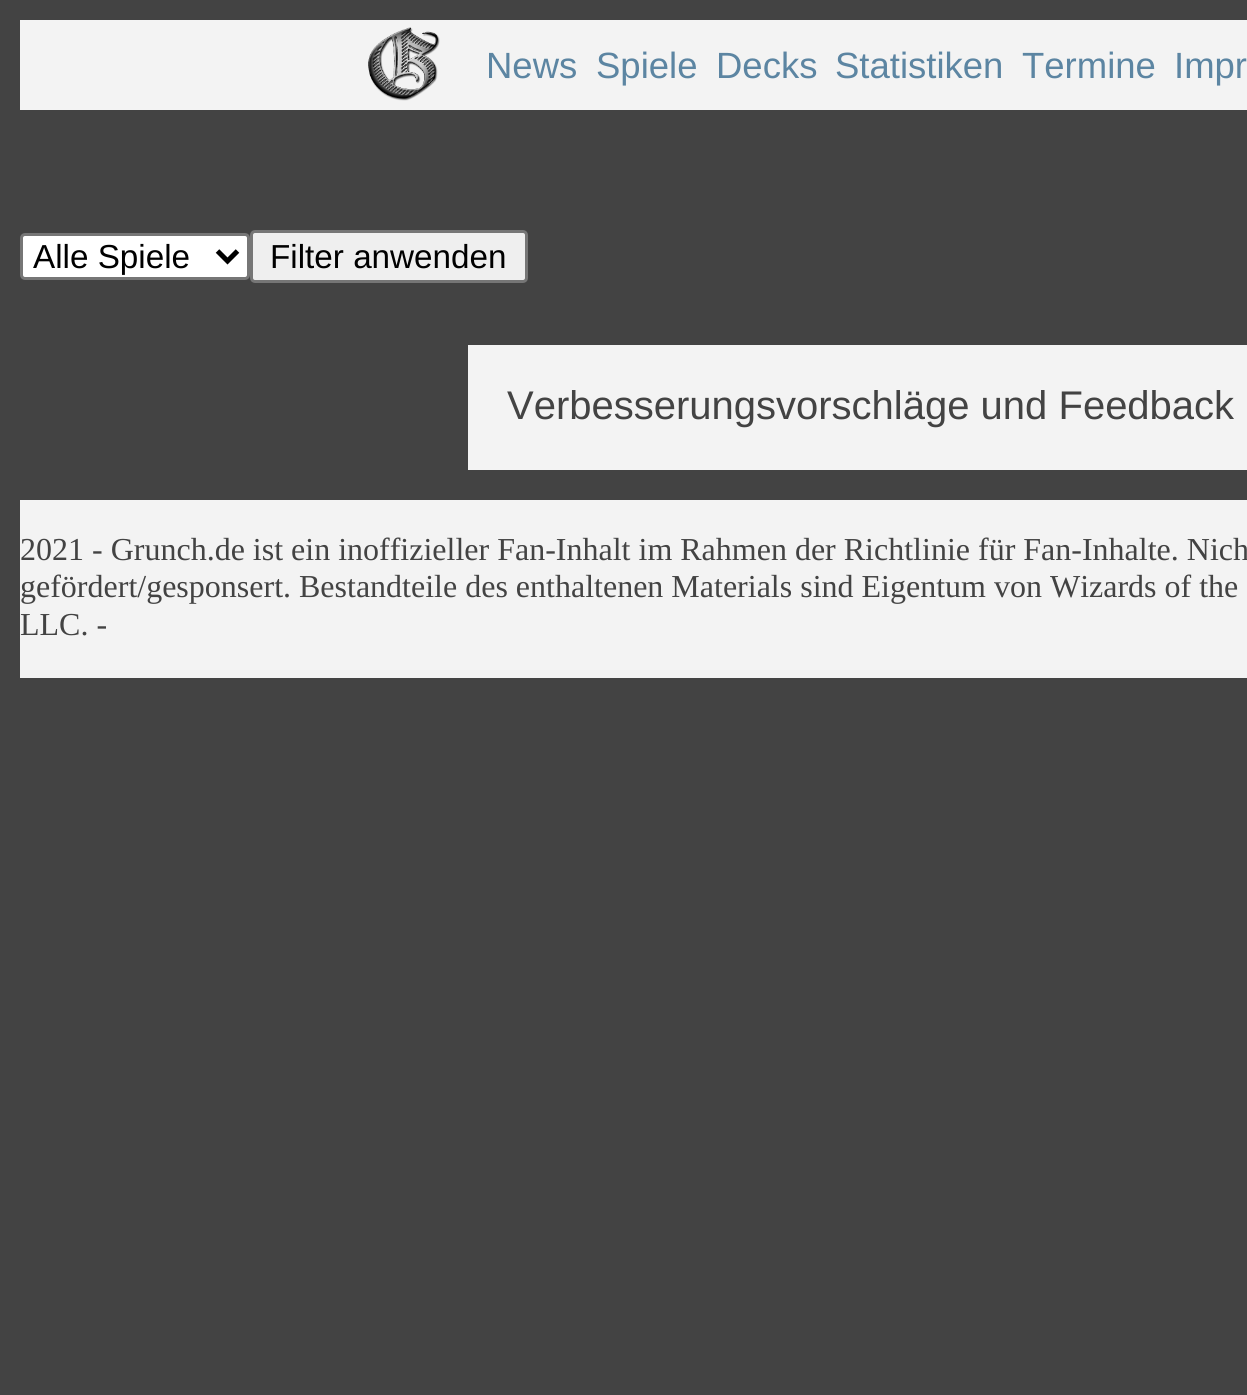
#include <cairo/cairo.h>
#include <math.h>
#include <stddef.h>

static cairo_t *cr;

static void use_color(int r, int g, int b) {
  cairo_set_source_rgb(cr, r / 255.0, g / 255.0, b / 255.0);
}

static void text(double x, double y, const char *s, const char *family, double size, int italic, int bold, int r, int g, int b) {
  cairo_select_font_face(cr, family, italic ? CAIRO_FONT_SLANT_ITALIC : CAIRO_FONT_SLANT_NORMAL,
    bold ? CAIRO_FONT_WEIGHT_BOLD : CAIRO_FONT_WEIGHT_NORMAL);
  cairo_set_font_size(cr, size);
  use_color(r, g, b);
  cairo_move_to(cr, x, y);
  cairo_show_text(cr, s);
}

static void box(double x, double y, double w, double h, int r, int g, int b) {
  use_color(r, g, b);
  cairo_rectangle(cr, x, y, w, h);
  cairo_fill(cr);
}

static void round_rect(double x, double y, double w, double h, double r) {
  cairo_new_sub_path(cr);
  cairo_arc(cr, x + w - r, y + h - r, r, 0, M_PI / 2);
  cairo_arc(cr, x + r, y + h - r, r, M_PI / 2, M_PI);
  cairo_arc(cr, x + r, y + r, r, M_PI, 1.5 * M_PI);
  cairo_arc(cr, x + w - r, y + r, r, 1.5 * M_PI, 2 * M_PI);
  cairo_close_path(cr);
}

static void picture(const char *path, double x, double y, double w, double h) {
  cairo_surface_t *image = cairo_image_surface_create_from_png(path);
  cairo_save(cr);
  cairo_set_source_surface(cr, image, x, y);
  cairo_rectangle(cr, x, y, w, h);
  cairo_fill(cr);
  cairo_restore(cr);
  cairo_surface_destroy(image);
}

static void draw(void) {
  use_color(67, 67, 67);
  cairo_paint(cr);
  box(20, 20, 1227, 90, 243, 243, 243);
  picture("img_01.png", 368, 27, 72, 74);
  use_color(255, 255, 255);
  round_rect(21.5, 234.5, 227, 44, 3.5);
  cairo_fill_preserve(cr);
  use_color(118, 118, 118);
  cairo_set_line_width(cr, 3);
  cairo_stroke(cr);
  cairo_new_path(cr);
  cairo_move_to(cr, 217.5, 251);
  cairo_line_to(cr, 227.5, 261);
  cairo_line_to(cr, 237.5, 251);
  use_color(0, 0, 0);
  cairo_set_line_width(cr, 5);
  cairo_stroke(cr);
  use_color(239, 239, 239);
  round_rect(251.5, 231.5, 275, 50, 3.5);
  cairo_fill_preserve(cr);
  use_color(118, 118, 118);
  cairo_set_line_width(cr, 3);
  cairo_stroke(cr);
  box(468, 345, 779, 125, 243, 243, 243);
  box(20, 500, 1227, 178, 243, 243, 243);
  text(486, 78, "News", "Liberation Sans", 36.5, 0, 0, 92, 133, 162);
  text(596, 78, "Spiele", "Liberation Sans", 36.5, 0, 0, 92, 133, 162);
  text(716, 78, "Decks", "Liberation Sans", 36.5, 0, 0, 92, 133, 162);
  text(835, 78, "Statistiken", "Liberation Sans", 36.5, 0, 0, 92, 133, 162);
  text(1022, 78, "Termine", "Liberation Sans", 36.5, 0, 0, 92, 133, 162);
  text(1174, 78, "Impr", "Liberation Sans", 36.5, 0, 0, 92, 133, 162);
  text(33, 268, "Alle Spiele", "Liberation Sans", 33.25, 0, 0, 0, 0, 0);
  text(270, 268, "Filter anwenden", "Liberation Sans", 33.25, 0, 0, 0, 0, 0);
  text(507, 419, "Verbesserungsvorschläge und Feedback", "Liberation Sans", 40, 0, 0, 67, 67, 67);
  text(20, 560, "2021 - Grunch.de ist ein inoffizieller Fan-Inhalt im Rahmen der Richtlinie für Fan-Inhalte. Nich", "Liberation Serif", 32, 0, 0, 67, 67, 67);
  text(20, 597, "gefördert/gesponsert. Bestandteile des enthaltenen Materials sind Eigentum von Wizards of the", "Liberation Serif", 32, 0, 0, 67, 67, 67);
  text(20, 635, "LLC. -", "Liberation Serif", 32, 0, 0, 67, 67, 67);
}

int main(void) {
  cairo_surface_t *surface = cairo_image_surface_create(CAIRO_FORMAT_RGB24, 1247, 1395);
  cr = cairo_create(surface);
  cairo_font_options_t *options = cairo_font_options_create();
  cairo_font_options_set_hint_metrics(options, CAIRO_HINT_METRICS_OFF);
  cairo_font_options_set_hint_style(options, CAIRO_HINT_STYLE_NONE);
  cairo_set_font_options(cr, options);
  cairo_set_miter_limit(cr, 4);
  draw();
  cairo_surface_write_to_png(surface, "out.png");
  cairo_font_options_destroy(options);
  cairo_destroy(cr);
  cairo_surface_destroy(surface);
  return 0;
}
